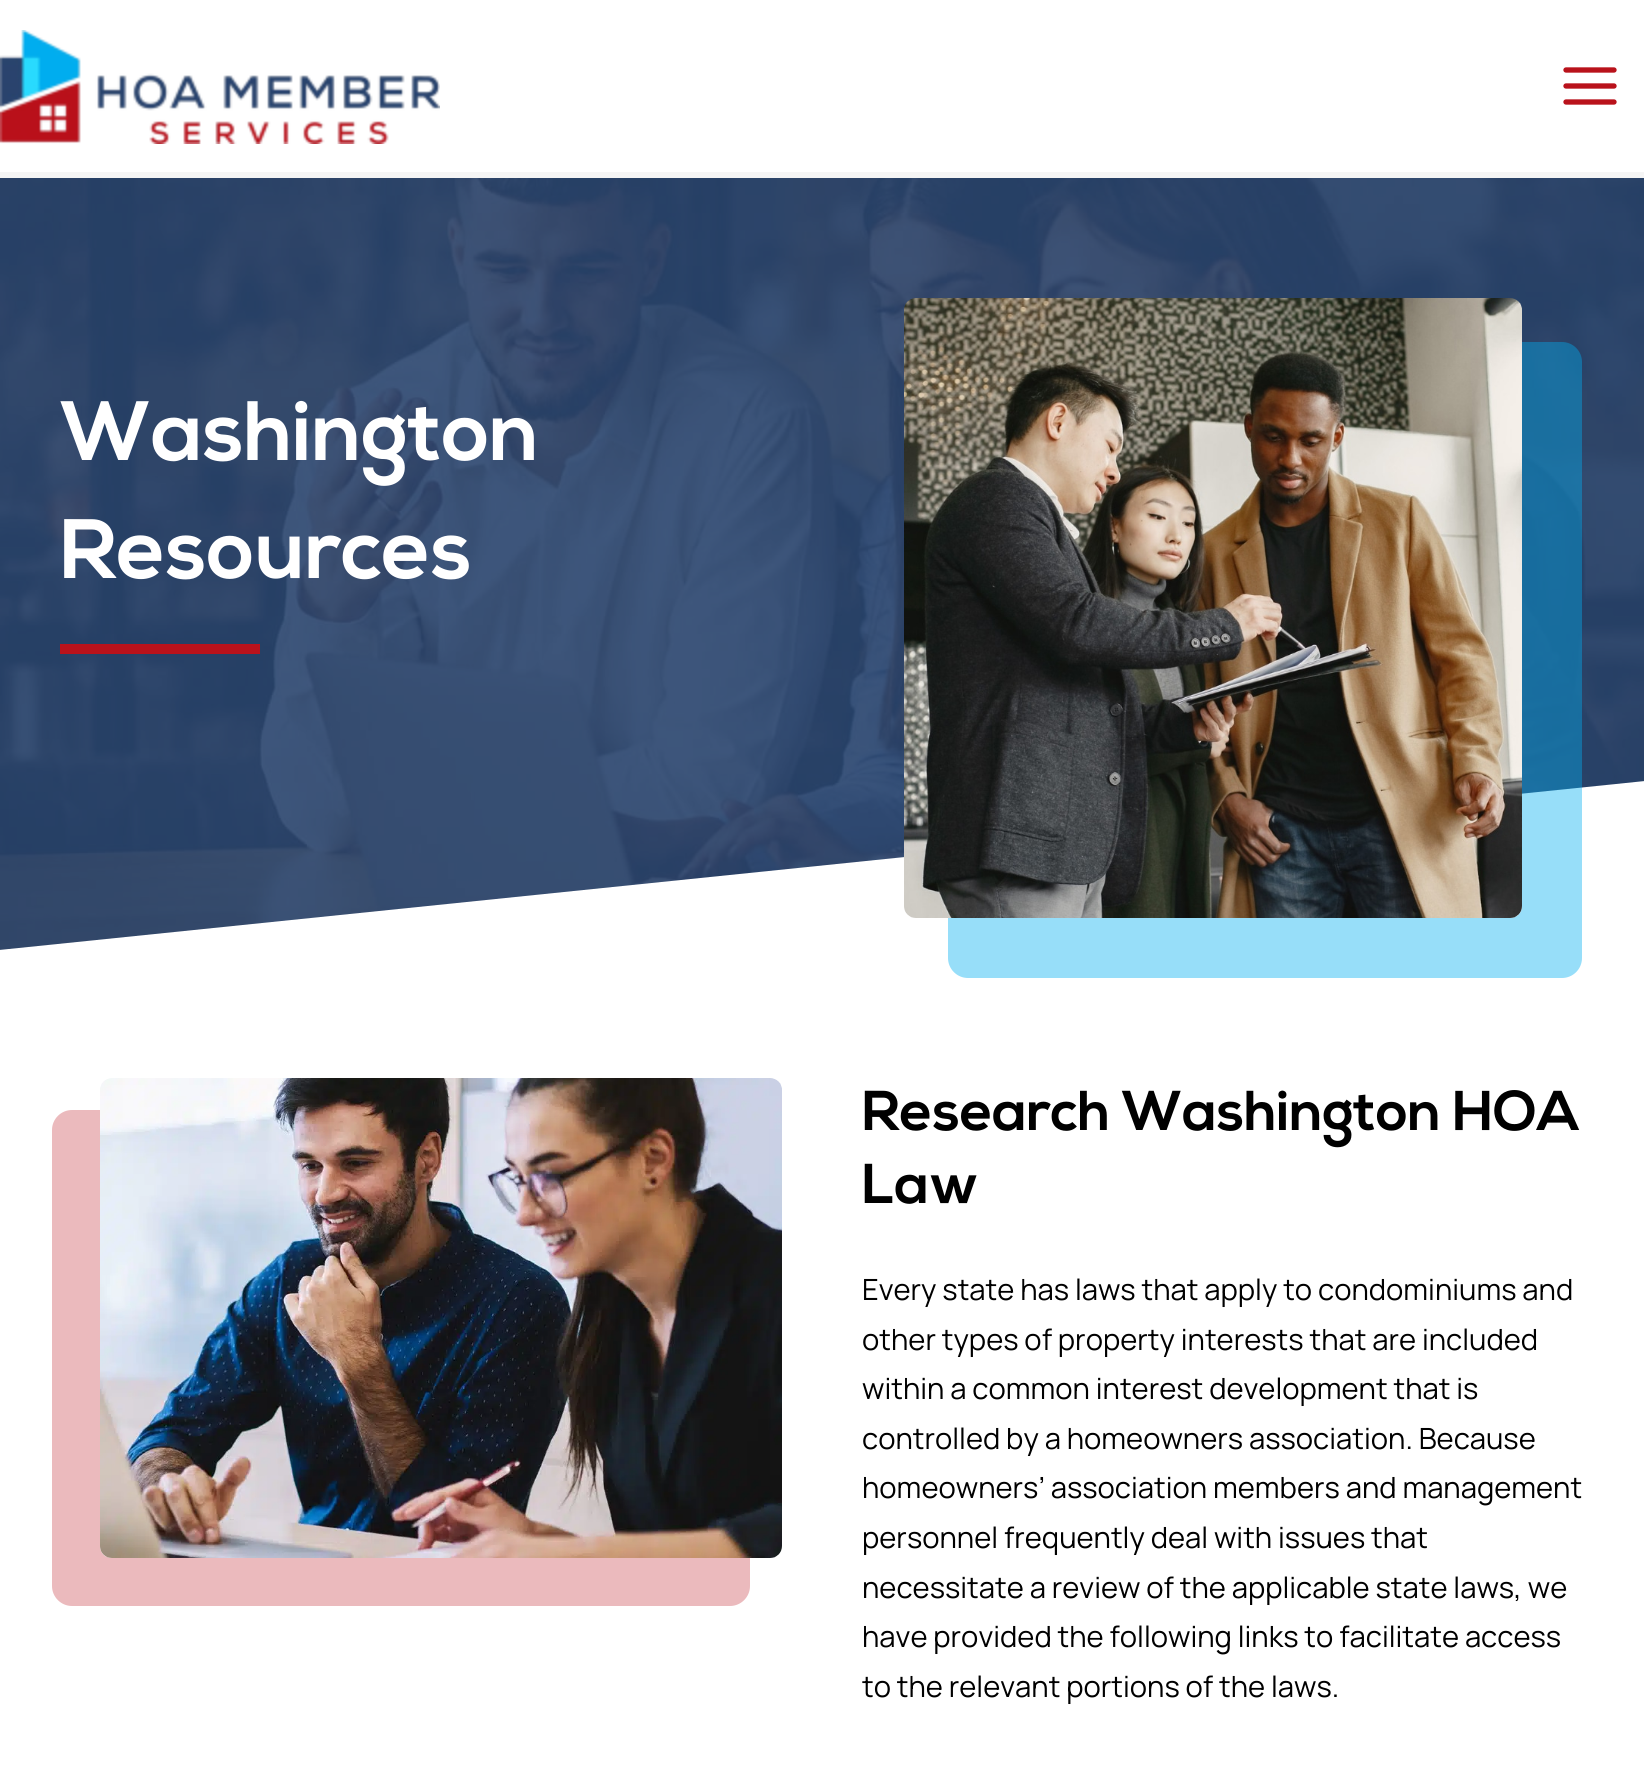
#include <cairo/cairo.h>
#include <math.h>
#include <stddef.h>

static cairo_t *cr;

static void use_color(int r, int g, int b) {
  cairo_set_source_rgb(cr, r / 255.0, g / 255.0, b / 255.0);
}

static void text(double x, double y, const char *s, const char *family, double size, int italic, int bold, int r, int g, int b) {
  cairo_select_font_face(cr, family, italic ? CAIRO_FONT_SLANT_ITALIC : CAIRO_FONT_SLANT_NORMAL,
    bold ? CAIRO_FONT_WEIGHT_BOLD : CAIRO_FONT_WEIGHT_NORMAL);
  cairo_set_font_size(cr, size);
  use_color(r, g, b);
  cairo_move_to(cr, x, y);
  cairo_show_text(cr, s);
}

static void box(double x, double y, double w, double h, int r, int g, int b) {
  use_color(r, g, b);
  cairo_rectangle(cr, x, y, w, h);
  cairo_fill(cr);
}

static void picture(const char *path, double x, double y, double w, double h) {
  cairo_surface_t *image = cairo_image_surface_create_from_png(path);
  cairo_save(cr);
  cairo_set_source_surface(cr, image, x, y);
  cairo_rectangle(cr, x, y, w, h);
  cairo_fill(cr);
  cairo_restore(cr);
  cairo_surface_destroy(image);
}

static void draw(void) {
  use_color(255, 255, 255);
  cairo_paint(cr);
  box(0, 172, 1644, 6, 245, 245, 245);
  picture("img_01.png", 0, 30, 440, 114);
  picture("img_02.png", 1563, 67, 54, 38);
  picture("img_03.png", 0, 178, 1644, 772);
  box(60, 644, 200, 10, 185, 18, 27);
  cairo_save(cr);
  cairo_rectangle(cr, 0, 780, 1644, 180);
  cairo_clip(cr);
  use_color(255, 255, 255);
  cairo_new_path(cr);
  cairo_move_to(cr, -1, 950);
  cairo_line_to(cr, -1, 961);
  cairo_line_to(cr, 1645, 961);
  cairo_line_to(cr, 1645, 781);
  cairo_close_path(cr);
  cairo_fill(cr);
  cairo_restore(cr);
  cairo_set_source_rgba(cr, 0, 0.682, 0.937, 0.41);
  cairo_new_path(cr);
  cairo_move_to(cr, 948, 918);
  cairo_line_to(cr, 948, 958);
  cairo_curve_to(cr, 948, 969, 957, 978, 968, 978);
  cairo_line_to(cr, 1562, 978);
  cairo_curve_to(cr, 1573, 978, 1582, 969, 1582, 958);
  cairo_line_to(cr, 1582, 362);
  cairo_curve_to(cr, 1582, 351, 1573, 342, 1562, 342);
  cairo_line_to(cr, 1522, 342);
  cairo_line_to(cr, 1522, 906);
  cairo_curve_to(cr, 1522, 913, 1517, 918, 1510, 918);
  cairo_close_path(cr);
  cairo_fill(cr);
  picture("img_04.png", 904, 298, 618, 620);
  use_color(235, 186, 189);
  cairo_new_path(cr);
  cairo_move_to(cr, 72, 1110);
  cairo_curve_to(cr, 61, 1110, 52, 1119, 52, 1130);
  cairo_line_to(cr, 52, 1586);
  cairo_curve_to(cr, 52, 1597, 61, 1606, 72, 1606);
  cairo_line_to(cr, 730, 1606);
  cairo_curve_to(cr, 741, 1606, 750, 1597, 750, 1586);
  cairo_line_to(cr, 750, 1558);
  cairo_line_to(cr, 112, 1558);
  cairo_curve_to(cr, 105, 1558, 100, 1553, 100, 1546);
  cairo_line_to(cr, 100, 1110);
  cairo_close_path(cr);
  cairo_fill(cr);
  picture("img_05.png", 100, 1078, 682, 480);
  text(60, 460, "Washington", "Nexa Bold", 84, 0, 1, 255, 255, 255);
  text(60, 578, "Resources", "Nexa Bold", 84, 0, 1, 255, 255, 255);
  text(862, 1130, "Research Washington HOA", "Nexa Bold", 56, 0, 1, 0, 0, 0);
  text(862, 1203, "Law", "Nexa Bold", 56, 0, 1, 0, 0, 0);
  text(862, 1300, "Every state has laws that apply to condominiums and", "Manrope ExtraLight", 29.2, 0, 0, 0, 0, 0);
  text(862, 1350, "other types of property interests that are included", "Manrope ExtraLight", 29.2, 0, 0, 0, 0, 0);
  text(862, 1399, "within a common interest development that is", "Manrope ExtraLight", 29.2, 0, 0, 0, 0, 0);
  text(862, 1449, "controlled by a homeowners association. Because", "Manrope ExtraLight", 29.2, 0, 0, 0, 0, 0);
  text(862, 1498, "homeowners’ association members and management", "Manrope ExtraLight", 29.2, 0, 0, 0, 0, 0);
  text(862, 1548, "personnel frequently deal with issues that", "Manrope ExtraLight", 29.2, 0, 0, 0, 0, 0);
  text(862, 1598, "necessitate a review of the applicable state laws, we", "Manrope ExtraLight", 29.2, 0, 0, 0, 0, 0);
  text(862, 1647, "have provided the following links to facilitate access", "Manrope ExtraLight", 29.2, 0, 0, 0, 0, 0);
  text(862, 1697, "to the relevant portions of the laws.", "Manrope ExtraLight", 29.2, 0, 0, 0, 0, 0);
}

int main(void) {
  cairo_surface_t *surface = cairo_image_surface_create(CAIRO_FORMAT_RGB24, 1644, 1770);
  cr = cairo_create(surface);
  cairo_font_options_t *options = cairo_font_options_create();
  cairo_font_options_set_hint_metrics(options, CAIRO_HINT_METRICS_OFF);
  cairo_font_options_set_hint_style(options, CAIRO_HINT_STYLE_NONE);
  cairo_set_font_options(cr, options);
  cairo_set_miter_limit(cr, 4);
  draw();
  cairo_surface_write_to_png(surface, "out.png");
  cairo_font_options_destroy(options);
  cairo_destroy(cr);
  cairo_surface_destroy(surface);
  return 0;
}
